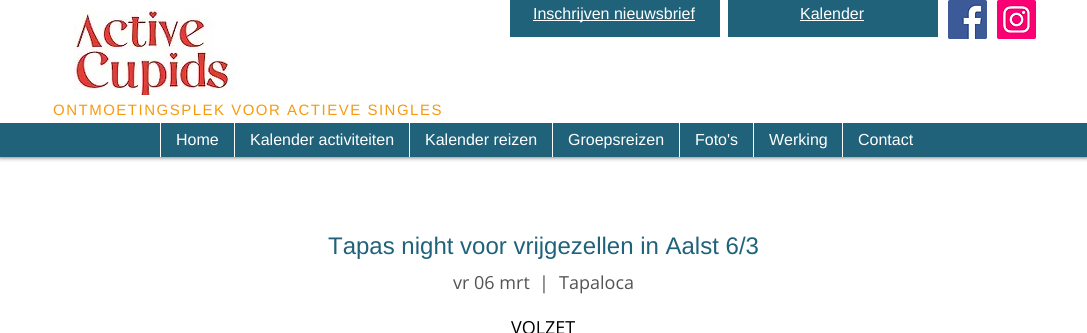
#include <cairo/cairo.h>
#include <math.h>
#include <stddef.h>

static cairo_t *cr;

static void use_color(int r, int g, int b) {
  cairo_set_source_rgb(cr, r / 255.0, g / 255.0, b / 255.0);
}

static void text(double x, double y, const char *s, const char *family, double size, int italic, int bold, int r, int g, int b) {
  cairo_select_font_face(cr, family, italic ? CAIRO_FONT_SLANT_ITALIC : CAIRO_FONT_SLANT_NORMAL,
    bold ? CAIRO_FONT_WEIGHT_BOLD : CAIRO_FONT_WEIGHT_NORMAL);
  cairo_set_font_size(cr, size);
  use_color(r, g, b);
  cairo_move_to(cr, x, y);
  cairo_show_text(cr, s);
}

static void spaced_text(double x, double y, const char *s, double letter, double word) {
  cairo_move_to(cr, x, y);
  while (*s) {
    char ch[5] = {0};
    int n = 0;
    do ch[n++] = *s++; while ((*s & 0xC0) == 0x80);
    cairo_show_text(cr, ch);
    cairo_rel_move_to(cr, letter + word * (*ch == ' '), 0);
  }
}

static void box(double x, double y, double w, double h, int r, int g, int b) {
  use_color(r, g, b);
  cairo_rectangle(cr, x, y, w, h);
  cairo_fill(cr);
}

static void round_rect(double x, double y, double w, double h, double r) {
  cairo_new_sub_path(cr);
  cairo_arc(cr, x + w - r, y + h - r, r, 0, M_PI / 2);
  cairo_arc(cr, x + r, y + h - r, r, M_PI / 2, M_PI);
  cairo_arc(cr, x + r, y + r, r, M_PI, 1.5 * M_PI);
  cairo_arc(cr, x + w - r, y + r, r, 1.5 * M_PI, 2 * M_PI);
  cairo_close_path(cr);
}

static void shadow(double x, double y, double w, double h, double r, double blur, double alpha) {
  cairo_push_group_with_content(cr, CAIRO_CONTENT_ALPHA);
  cairo_set_operator(cr, CAIRO_OPERATOR_SOURCE);
  for (int i = 15; i >= -15 && fmin(w, h) + blur * i / 3 > 0; i -= 2) {
    double e = blur * i / 6;
    cairo_set_source_rgba(cr, 0, 0, 0, alpha * erfc((i - 1) / 8.5) / 2);
    round_rect(x - e, y - e, w + 2 * e, h + 2 * e, fmax(0, fmin(r + e + blur * .6, fmin(w, h) / 2 + e)));
    cairo_fill(cr);
  }
  cairo_pattern_t *soft = cairo_pop_group(cr);
  cairo_mask(cr, soft);
  cairo_pattern_destroy(soft);
}

static void picture(const char *path, double x, double y, double w, double h) {
  cairo_surface_t *image = cairo_image_surface_create_from_png(path);
  cairo_save(cr);
  cairo_set_source_surface(cr, image, x, y);
  cairo_rectangle(cr, x, y, w, h);
  cairo_fill(cr);
  cairo_restore(cr);
  cairo_surface_destroy(image);
}

static void draw(void) {
  use_color(255, 255, 255);
  cairo_paint(cr);
  cairo_save(cr);
  cairo_rectangle(cr, 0, 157, 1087, 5);
  cairo_clip(cr);
  use_color(0, 0, 0);
  shadow(0, 0, 1087, 157, 0, 2.5, 0.7);
  cairo_restore(cr);
  picture("img_01.png", 74, 10, 160, 85);
  box(510, 0, 210, 37, 32, 98, 122);
  box(533, 20, 162, 1, 255, 255, 255);
  box(728, 0, 210, 37, 32, 98, 122);
  box(800, 20, 64, 1, 255, 255, 255);
  picture("img_02.png", 948, 0, 39, 39);
  picture("img_03.png", 997, 0, 39, 39);
  box(0, 123, 1087, 34, 32, 98, 122);
  box(160, 123, 1, 34, 255, 255, 255);
  box(234, 123, 1, 34, 255, 255, 255);
  box(409, 123, 1, 34, 255, 255, 255);
  box(552, 123, 1, 34, 255, 255, 255);
  box(679, 123, 1, 34, 255, 255, 255);
  box(753, 123, 1, 34, 255, 255, 255);
  box(842, 123, 1, 34, 255, 255, 255);
  text(533, 19, "Inschrijven nieuwsbrief", "Liberation Sans", 16, 0, 0, 255, 255, 255);
  text(800, 19, "Kalender", "Liberation Sans", 16, 0, 0, 255, 255, 255);
  cairo_set_font_size(cr, 15);
  use_color(247, 154, 14);
  spaced_text(53, 115, "ONTMOETINGSPLEK VOOR ACTIEVE SINGLES", 1.5, 0);
  text(176, 145, "Home", "Liberation Sans", 16, 0, 0, 255, 255, 255);
  text(250, 145, "Kalender activiteiten", "Liberation Sans", 16, 0, 0, 255, 255, 255);
  text(425, 145, "Kalender reizen", "Liberation Sans", 16, 0, 0, 255, 255, 255);
  text(568, 145, "Groepsreizen", "Liberation Sans", 16, 0, 0, 255, 255, 255);
  text(695, 145, "Foto's", "Liberation Sans", 16, 0, 0, 255, 255, 255);
  text(769, 145, "Werking", "Liberation Sans", 16, 0, 0, 255, 255, 255);
  text(858, 145, "Contact", "Liberation Sans", 16, 0, 0, 255, 255, 255);
  text(328, 254, "Tapas night voor vrijgezellen in Aalst 6/3", "Liberation Sans", 24, 0, 0, 32, 98, 122);
  text(453, 289, "vr 06 mrt", "Open Sans", 18, 0, 0, 84, 84, 84);
  text(539, 289, "|", "Open Sans", 18, 0, 0, 84, 84, 84);
  text(559, 289, "Tapaloca", "Open Sans", 18, 0, 0, 84, 84, 84);
  text(511, 334, "VOLZET", "Open Sans", 18, 0, 0, 0, 0, 0);
}

int main(void) {
  cairo_surface_t *surface = cairo_image_surface_create(CAIRO_FORMAT_RGB24, 1087, 333);
  cr = cairo_create(surface);
  cairo_font_options_t *options = cairo_font_options_create();
  cairo_font_options_set_hint_metrics(options, CAIRO_HINT_METRICS_OFF);
  cairo_font_options_set_hint_style(options, CAIRO_HINT_STYLE_NONE);
  cairo_set_font_options(cr, options);
  cairo_set_miter_limit(cr, 4);
  draw();
  cairo_surface_write_to_png(surface, "out.png");
  cairo_font_options_destroy(options);
  cairo_destroy(cr);
  cairo_surface_destroy(surface);
  return 0;
}
